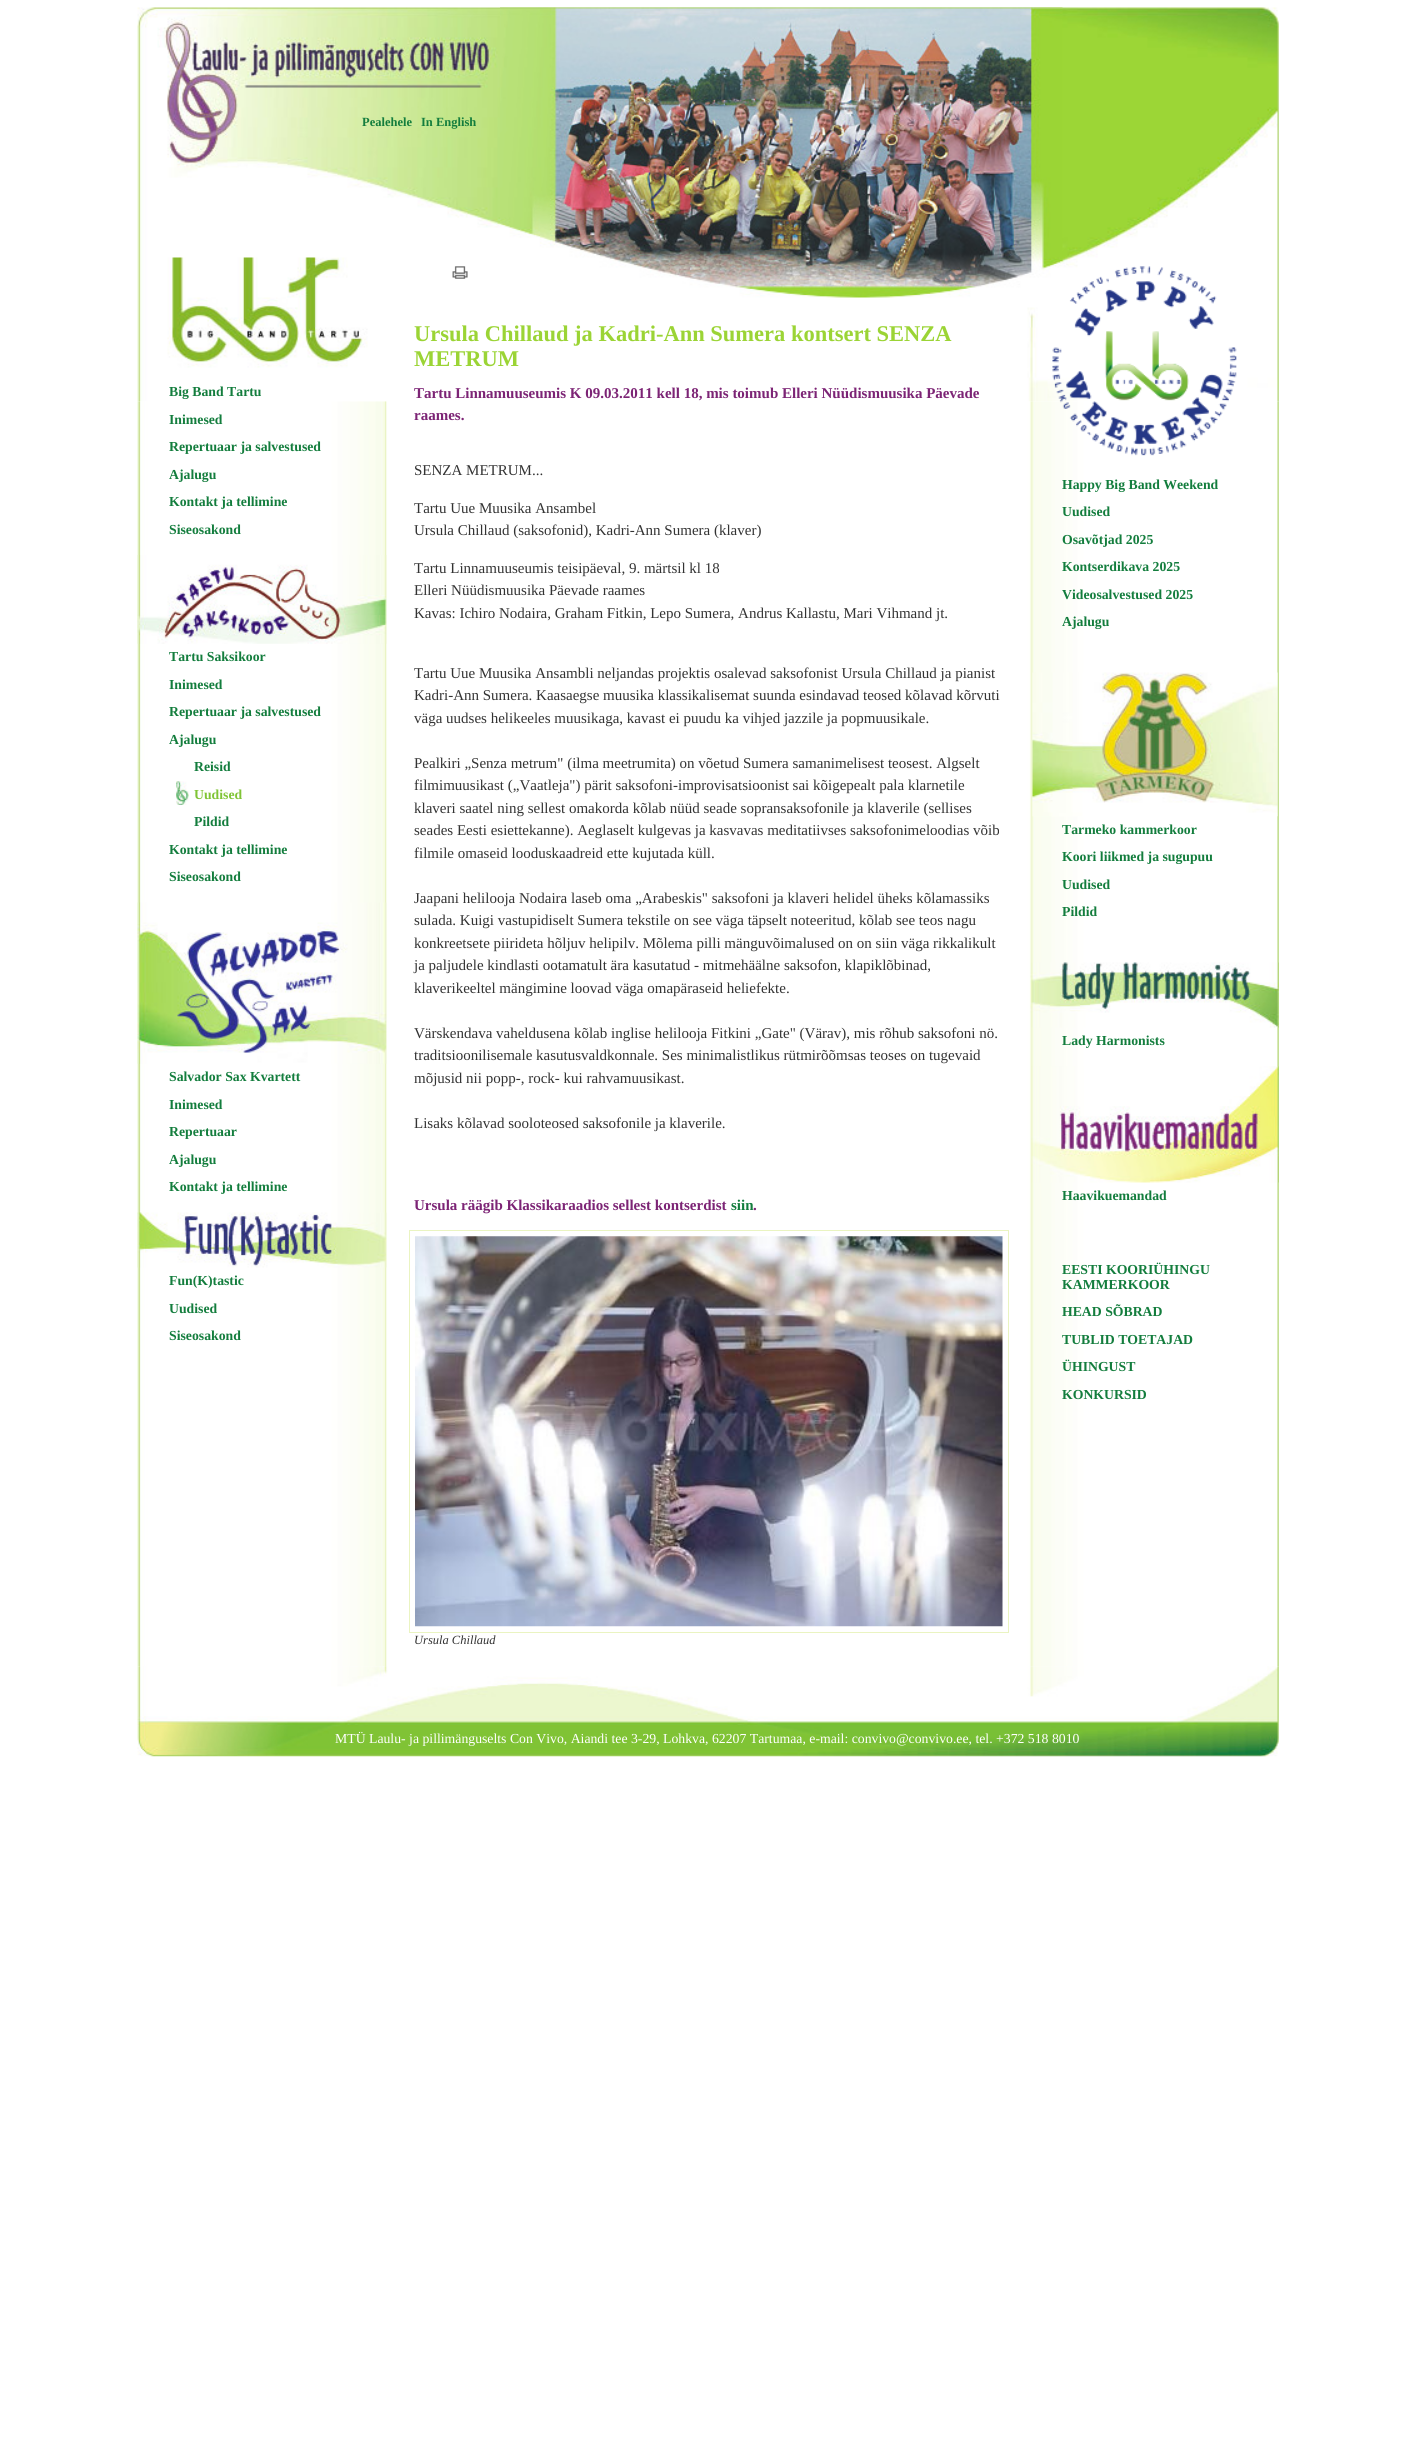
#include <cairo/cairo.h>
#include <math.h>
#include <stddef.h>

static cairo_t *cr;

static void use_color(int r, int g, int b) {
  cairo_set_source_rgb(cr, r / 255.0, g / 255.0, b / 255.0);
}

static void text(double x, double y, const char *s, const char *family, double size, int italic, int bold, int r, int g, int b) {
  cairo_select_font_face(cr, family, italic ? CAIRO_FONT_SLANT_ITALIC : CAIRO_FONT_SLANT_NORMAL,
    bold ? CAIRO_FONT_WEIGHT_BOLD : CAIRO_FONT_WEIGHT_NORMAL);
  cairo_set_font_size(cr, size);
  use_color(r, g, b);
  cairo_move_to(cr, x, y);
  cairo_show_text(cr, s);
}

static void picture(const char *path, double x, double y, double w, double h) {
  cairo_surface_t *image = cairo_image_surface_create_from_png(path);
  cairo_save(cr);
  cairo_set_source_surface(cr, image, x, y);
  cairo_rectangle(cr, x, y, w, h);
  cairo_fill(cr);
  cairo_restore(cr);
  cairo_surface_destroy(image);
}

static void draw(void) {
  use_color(255, 255, 255);
  cairo_paint(cr);
  picture("img_04.png", 137, 401, 1142, 1266);
  picture("img_01.png", 137, 7, 1142, 395);
  picture("img_02.png", 500, 7, 563, 291);
  picture("img_03.png", 452, 266, 16, 13);
  picture("img_05.png", 137, 555, 250, 89);
  picture("img_06.png", 176, 781, 13, 24);
  picture("img_07.png", 137, 902, 250, 162);
  picture("img_08.png", 137, 1212, 250, 56);
  cairo_rectangle(cr, 409.5, 1230.5, 599, 402);
  use_color(234, 244, 193);
  cairo_set_line_width(cr, 1);
  cairo_stroke(cr);
  picture("img_09.png", 415, 1236, 588, 391);
  picture("img_10.png", 1052, 266, 185, 190);
  picture("img_11.png", 1032, 672, 246, 145);
  picture("img_12.png", 1030, 962, 249, 66);
  picture("img_13.png", 1031, 1066, 248, 117);
  picture("img_14.png", 137, 1666, 1142, 91);
  text(362, 126, "Pealehele", "Liberation Serif", 12.5, 0, 1, 19, 125, 61);
  text(421, 126, "In English", "Liberation Serif", 12.5, 0, 1, 19, 125, 61);
  text(169, 396, "Big Band Tartu", "Liberation Serif", 13.75, 0, 1, 19, 125, 61);
  text(169, 424, "Inimesed", "Liberation Serif", 13.75, 0, 1, 19, 125, 61);
  text(169, 451, "Repertuaar ja salvestused", "Liberation Serif", 13.75, 0, 1, 19, 125, 61);
  text(169, 479, "Ajalugu", "Liberation Serif", 13.75, 0, 1, 19, 125, 61);
  text(169, 506, "Kontakt ja tellimine", "Liberation Serif", 13.75, 0, 1, 19, 125, 61);
  text(169, 534, "Siseosakond", "Liberation Serif", 13.75, 0, 1, 19, 125, 61);
  text(169, 661, "Tartu Saksikoor", "Liberation Serif", 13.75, 0, 1, 19, 125, 61);
  text(169, 689, "Inimesed", "Liberation Serif", 13.75, 0, 1, 19, 125, 61);
  text(169, 716, "Repertuaar ja salvestused", "Liberation Serif", 13.75, 0, 1, 19, 125, 61);
  text(169, 744, "Ajalugu", "Liberation Serif", 13.75, 0, 1, 19, 125, 61);
  text(194, 771, "Reisid", "Liberation Serif", 13.75, 0, 1, 19, 125, 61);
  text(194, 799, "Uudised", "Liberation Serif", 13.75, 0, 1, 128, 196, 54);
  text(194, 826, "Pildid", "Liberation Serif", 13.75, 0, 1, 19, 125, 61);
  text(169, 854, "Kontakt ja tellimine", "Liberation Serif", 13.75, 0, 1, 19, 125, 61);
  text(169, 881, "Siseosakond", "Liberation Serif", 13.75, 0, 1, 19, 125, 61);
  text(169, 1081, "Salvador Sax Kvartett", "Liberation Serif", 13.75, 0, 1, 19, 125, 61);
  text(169, 1109, "Inimesed", "Liberation Serif", 13.75, 0, 1, 19, 125, 61);
  text(169, 1136, "Repertuaar", "Liberation Serif", 13.75, 0, 1, 19, 125, 61);
  text(169, 1164, "Ajalugu", "Liberation Serif", 13.75, 0, 1, 19, 125, 61);
  text(169, 1191, "Kontakt ja tellimine", "Liberation Serif", 13.75, 0, 1, 19, 125, 61);
  text(169, 1285, "Fun(K)tastic", "Liberation Serif", 13.75, 0, 1, 19, 125, 61);
  text(169, 1313, "Uudised", "Liberation Serif", 13.75, 0, 1, 19, 125, 61);
  text(169, 1340, "Siseosakond", "Liberation Serif", 13.75, 0, 1, 19, 125, 61);
  text(414, 341, "Ursula Chillaud ja Kadri-Ann Sumera kontsert SENZA", "Liberation Serif", 22.5, 0, 1, 155, 212, 53);
  text(414, 366, "METRUM", "Liberation Serif", 22.5, 0, 1, 155, 212, 53);
  text(414, 398, "Tartu Linnamuuseumis K 09.03.2011 kell 18, mis toimub Elleri Nüüdismuusika Päevade", "Liberation Serif", 15, 0, 1, 124, 36, 117);
  text(414, 420, "raames.", "Liberation Serif", 15, 0, 1, 124, 36, 117);
  text(414, 475, "SENZA METRUM...", "Liberation Serif", 15, 0, 0, 51, 51, 51);
  text(414, 513, "Tartu Uue Muusika Ansambel", "Liberation Serif", 15, 0, 0, 51, 51, 51);
  text(414, 535, "Ursula Chillaud (saksofonid), Kadri-Ann Sumera (klaver)", "Liberation Serif", 15, 0, 0, 51, 51, 51);
  text(414, 573, "Tartu Linnamuuseumis teisipäeval, 9. märtsil kl 18", "Liberation Serif", 15, 0, 0, 51, 51, 51);
  text(414, 595, "Elleri Nüüdismuusika Päevade raames", "Liberation Serif", 15, 0, 0, 51, 51, 51);
  text(414, 618, "Kavas: Ichiro Nodaira, Graham Fitkin, Lepo Sumera, Andrus Kallastu, Mari Vihmand jt.", "Liberation Serif", 15, 0, 0, 51, 51, 51);
  text(414, 678, "Tartu Uue Muusika Ansambli neljandas projektis osalevad saksofonist Ursula Chillaud ja pianist", "Liberation Serif", 15, 0, 0, 51, 51, 51);
  text(414, 700, "Kadri-Ann Sumera. Kaasaegse muusika klassikalisemat suunda esindavad teosed kõlavad kõrvuti", "Liberation Serif", 15, 0, 0, 51, 51, 51);
  text(414, 723, "väga uudses helikeeles muusikaga, kavast ei puudu ka vihjed jazzile ja popmuusikale.", "Liberation Serif", 15, 0, 0, 51, 51, 51);
  text(414, 768, "Pealkiri „Senza metrum\" (ilma meetrumita) on võetud Sumera samanimelisest teosest. Algselt", "Liberation Serif", 15, 0, 0, 51, 51, 51);
  text(414, 790, "filmimuusikast („Vaatleja\") pärit saksofoni-improvisatsioonist sai kõigepealt pala klarnetile", "Liberation Serif", 15, 0, 0, 51, 51, 51);
  text(414, 813, "klaveri saatel ning sellest omakorda kõlab nüüd seade sopransaksofonile ja klaverile (sellises", "Liberation Serif", 15, 0, 0, 51, 51, 51);
  text(414, 835, "seades Eesti esiettekanne). Aeglaselt kulgevas ja kasvavas meditatiivses saksofonimeloodias võib", "Liberation Serif", 15, 0, 0, 51, 51, 51);
  text(414, 858, "filmile omaseid looduskaadreid ette kujutada küll.", "Liberation Serif", 15, 0, 0, 51, 51, 51);
  text(414, 903, "Jaapani helilooja Nodaira laseb oma „Arabeskis\" saksofoni ja klaveri helidel üheks kõlamassiks", "Liberation Serif", 15, 0, 0, 51, 51, 51);
  text(414, 925, "sulada. Kuigi vastupidiselt Sumera tekstile on see väga täpselt noteeritud, kõlab see teos nagu", "Liberation Serif", 15, 0, 0, 51, 51, 51);
  text(414, 948, "konkreetsete piirideta hõljuv helipilv. Mõlema pilli mänguvõimalused on on siin väga rikkalikult", "Liberation Serif", 15, 0, 0, 51, 51, 51);
  text(414, 970, "ja paljudele kindlasti ootamatult ära kasutatud - mitmehäälne saksofon, klapiklõbinad,", "Liberation Serif", 15, 0, 0, 51, 51, 51);
  text(414, 993, "klaverikeeltel mängimine loovad väga omapäraseid heliefekte.", "Liberation Serif", 15, 0, 0, 51, 51, 51);
  text(414, 1038, "Värskendava vaheldusena kõlab inglise helilooja Fitkini „Gate\" (Värav), mis rõhub saksofoni nö.", "Liberation Serif", 15, 0, 0, 51, 51, 51);
  text(414, 1060, "traditsioonilisemale kasutusvaldkonnale. Ses minimalistlikus rütmirõõmsas teoses on tugevaid", "Liberation Serif", 15, 0, 0, 51, 51, 51);
  text(414, 1083, "mõjusid nii popp-, rock- kui rahvamuusikast.", "Liberation Serif", 15, 0, 0, 51, 51, 51);
  text(414, 1128, "Lisaks kõlavad sooloteosed saksofonile ja klaverile.", "Liberation Serif", 15, 0, 0, 51, 51, 51);
  text(414, 1210, "Ursula räägib Klassikaraadios sellest kontserdist", "Liberation Serif", 15, 0, 1, 124, 36, 117);
  text(731, 1210, "siin", "Liberation Serif", 15, 0, 1, 19, 125, 61);
  text(753, 1210, ".", "Liberation Serif", 15, 0, 1, 124, 36, 117);
  text(414, 1644, "Ursula Chillaud", "Liberation Serif", 12.5, 1, 0, 51, 51, 51);
  text(1062, 489, "Happy Big Band Weekend", "Liberation Serif", 13.75, 0, 1, 19, 125, 61);
  text(1062, 516, "Uudised", "Liberation Serif", 13.75, 0, 1, 19, 125, 61);
  text(1062, 544, "Osavõtjad 2025", "Liberation Serif", 13.75, 0, 1, 19, 125, 61);
  text(1062, 571, "Kontserdikava 2025", "Liberation Serif", 13.75, 0, 1, 19, 125, 61);
  text(1062, 599, "Videosalvestused 2025", "Liberation Serif", 13.75, 0, 1, 19, 125, 61);
  text(1062, 626, "Ajalugu", "Liberation Serif", 13.75, 0, 1, 19, 125, 61);
  text(1062, 834, "Tarmeko kammerkoor", "Liberation Serif", 13.75, 0, 1, 19, 125, 61);
  text(1062, 861, "Koori liikmed ja sugupuu", "Liberation Serif", 13.75, 0, 1, 19, 125, 61);
  text(1062, 889, "Uudised", "Liberation Serif", 13.75, 0, 1, 19, 125, 61);
  text(1062, 916, "Pildid", "Liberation Serif", 13.75, 0, 1, 19, 125, 61);
  text(1062, 1045, "Lady Harmonists", "Liberation Serif", 13.75, 0, 1, 19, 125, 61);
  text(1062, 1200, "Haavikuemandad", "Liberation Serif", 13.75, 0, 1, 19, 125, 61);
  text(1062, 1274, "EESTI KOORIÜHINGU", "Liberation Serif", 13.75, 0, 1, 19, 125, 61);
  text(1062, 1289, "KAMMERKOOR", "Liberation Serif", 13.75, 0, 1, 19, 125, 61);
  text(1062, 1316, "HEAD SÕBRAD", "Liberation Serif", 13.75, 0, 1, 19, 125, 61);
  text(1062, 1344, "TUBLID TOETAJAD", "Liberation Serif", 13.75, 0, 1, 19, 125, 61);
  text(1062, 1371, "ÜHINGUST", "Liberation Serif", 13.75, 0, 1, 19, 125, 61);
  text(1062, 1399, "KONKURSID", "Liberation Serif", 13.75, 0, 1, 19, 125, 61);
  text(335, 1743, "MTÜ Laulu- ja pillimänguselts Con Vivo, Aiandi tee 3-29, Lohkva, 62207 Tartumaa, e-mail: convivo@convivo.ee, tel. +372 518 8010", "Liberation Serif", 13.75, 0, 0, 255, 255, 255);
}

int main(void) {
  cairo_surface_t *surface = cairo_image_surface_create(CAIRO_FORMAT_RGB24, 1414, 2464);
  cr = cairo_create(surface);
  cairo_font_options_t *options = cairo_font_options_create();
  cairo_font_options_set_hint_metrics(options, CAIRO_HINT_METRICS_OFF);
  cairo_font_options_set_hint_style(options, CAIRO_HINT_STYLE_NONE);
  cairo_set_font_options(cr, options);
  cairo_set_miter_limit(cr, 4);
  draw();
  cairo_surface_write_to_png(surface, "out.png");
  cairo_font_options_destroy(options);
  cairo_destroy(cr);
  cairo_surface_destroy(surface);
  return 0;
}
